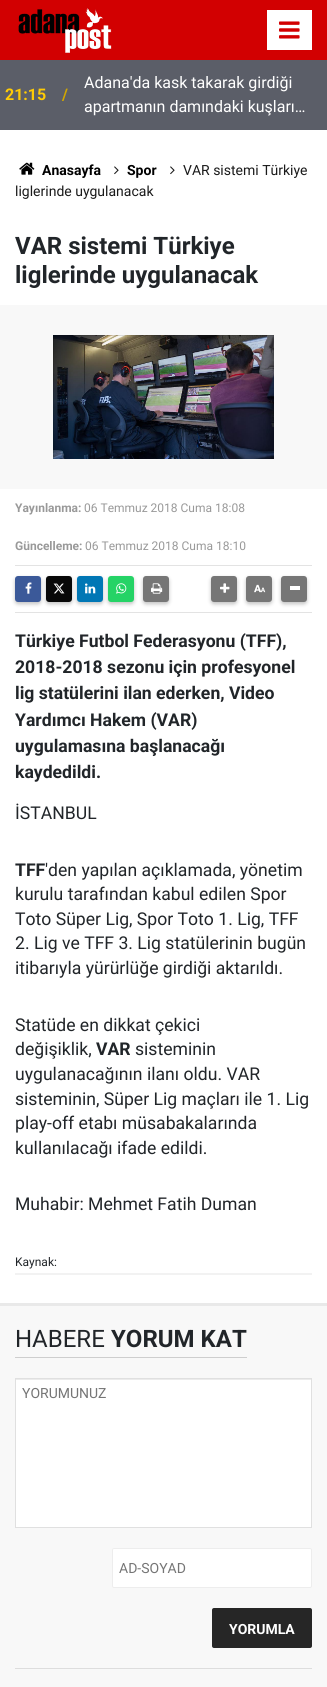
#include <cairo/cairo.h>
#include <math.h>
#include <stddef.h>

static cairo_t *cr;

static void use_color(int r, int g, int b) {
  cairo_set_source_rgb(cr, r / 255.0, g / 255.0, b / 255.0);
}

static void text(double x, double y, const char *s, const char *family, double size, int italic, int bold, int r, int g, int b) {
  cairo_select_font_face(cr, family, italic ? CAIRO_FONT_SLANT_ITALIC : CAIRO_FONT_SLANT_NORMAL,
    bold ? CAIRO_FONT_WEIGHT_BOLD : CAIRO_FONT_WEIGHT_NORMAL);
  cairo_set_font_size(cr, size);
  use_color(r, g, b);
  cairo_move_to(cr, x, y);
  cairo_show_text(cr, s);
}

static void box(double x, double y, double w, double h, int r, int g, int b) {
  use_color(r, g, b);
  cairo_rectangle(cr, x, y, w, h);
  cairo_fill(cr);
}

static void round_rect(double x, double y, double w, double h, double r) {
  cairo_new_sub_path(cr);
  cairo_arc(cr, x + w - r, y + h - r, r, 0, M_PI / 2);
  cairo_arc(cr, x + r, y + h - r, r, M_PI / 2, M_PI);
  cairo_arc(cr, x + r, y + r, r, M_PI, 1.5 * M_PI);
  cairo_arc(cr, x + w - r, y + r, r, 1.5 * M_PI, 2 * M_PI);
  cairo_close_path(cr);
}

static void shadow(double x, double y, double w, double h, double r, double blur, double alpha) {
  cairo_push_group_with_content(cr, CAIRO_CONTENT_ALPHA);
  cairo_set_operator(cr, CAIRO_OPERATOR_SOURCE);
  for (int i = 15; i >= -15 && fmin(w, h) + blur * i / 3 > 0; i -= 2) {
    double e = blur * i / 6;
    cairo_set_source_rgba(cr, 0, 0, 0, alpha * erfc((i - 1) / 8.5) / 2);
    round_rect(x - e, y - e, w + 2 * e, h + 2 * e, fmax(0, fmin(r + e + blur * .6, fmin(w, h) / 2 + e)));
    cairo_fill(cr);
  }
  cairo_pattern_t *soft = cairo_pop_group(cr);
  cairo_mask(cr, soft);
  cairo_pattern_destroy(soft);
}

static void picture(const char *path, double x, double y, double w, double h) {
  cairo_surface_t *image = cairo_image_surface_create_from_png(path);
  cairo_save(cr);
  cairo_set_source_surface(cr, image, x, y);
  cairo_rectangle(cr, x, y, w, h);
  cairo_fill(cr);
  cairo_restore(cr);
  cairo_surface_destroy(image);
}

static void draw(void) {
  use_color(255, 255, 255);
  cairo_paint(cr);
  box(0, 0, 327, 60, 210, 0, 1);
  picture("img_01.png", 18, 8, 94, 45);
  box(267, 10, 45, 40, 255, 255, 255);
  picture("img_02.png", 279, 21, 21, 18);
  box(0, 60, 327, 70, 91, 94, 104);
  picture("img_03.png", 19, 162, 16, 13);
  picture("img_04.png", 114, 166, 5, 9);
  picture("img_04.png", 170, 166, 5, 9);
  box(0, 305, 327, 184, 248, 248, 248);
  picture("img_05.png", 53, 335, 221, 124);
  box(15, 565, 297, 1, 227, 227, 227);
  box(15, 612, 297, 1, 227, 227, 227);
  use_color(50, 50, 50);
  shadow(15, 578, 26, 26, 3, 2, 0.3);
  use_color(59, 89, 153);
  round_rect(15, 576, 26, 26, 3);
  cairo_fill(cr);
  picture("img_06.png", 25, 582, 7, 12);
  use_color(50, 50, 50);
  shadow(46, 578, 26, 26, 3, 2, 0.3);
  use_color(8, 8, 8);
  round_rect(46, 576, 26, 26, 3);
  cairo_fill(cr);
  picture("img_07.png", 53, 583, 12, 11);
  use_color(50, 50, 50);
  shadow(77, 578, 26, 26, 3, 2, 0.3);
  use_color(0, 119, 181);
  round_rect(77, 576, 26, 26, 3);
  cairo_fill(cr);
  picture("img_08.png", 85, 583, 11, 11);
  use_color(50, 50, 50);
  shadow(108, 578, 26, 26, 3, 2, 0.3);
  use_color(37, 211, 102);
  round_rect(108, 576, 26, 26, 3);
  cairo_fill(cr);
  picture("img_09.png", 116, 583, 11, 11);
  use_color(50, 50, 50);
  shadow(143, 578, 26, 26, 3, 2, 0.3);
  use_color(118, 118, 118);
  round_rect(143, 576, 26, 26, 3);
  cairo_fill(cr);
  picture("img_10.png", 151, 583, 12, 11);
  use_color(50, 50, 50);
  shadow(211, 578, 26, 26, 3, 2, 0.3);
  use_color(118, 118, 118);
  round_rect(211, 576, 26, 26, 3);
  cairo_fill(cr);
  picture("img_11.png", 220, 583, 10, 10);
  use_color(50, 50, 50);
  shadow(246, 578, 26, 26, 3, 2, 0.3);
  use_color(118, 118, 118);
  round_rect(246, 576, 26, 26, 3);
  cairo_fill(cr);
  picture("img_12.png", 254, 584, 12, 9);
  use_color(50, 50, 50);
  shadow(281, 578, 26, 26, 3, 2, 0.3);
  use_color(118, 118, 118);
  round_rect(281, 576, 26, 26, 3);
  cairo_fill(cr);
  box(290, 586, 10, 4, 255, 255, 255);
  box(15, 1273, 297, 2, 242, 242, 242);
  box(0, 1306, 327, 381, 248, 248, 248);
  box(0, 1303, 327, 3, 233, 233, 233);
  box(15, 1357, 232, 1, 206, 206, 206);
  box(16, 1380, 295, 147, 255, 255, 255);
  box(16, 1379, 295, 1, 236, 236, 236);
  cairo_rectangle(cr, 15.5, 1378.5, 296, 149);
  use_color(224, 224, 224);
  cairo_set_line_width(cr, 1);
  cairo_stroke(cr);
  use_color(255, 255, 255);
  round_rect(112.5, 1548.5, 199, 39, 1.5);
  cairo_fill_preserve(cr);
  use_color(237, 237, 237);
  cairo_stroke(cr);
  use_color(38, 38, 38);
  round_rect(212, 1608, 100, 40, 2);
  cairo_fill(cr);
  box(15, 1668, 297, 1, 221, 221, 221);
  text(5, 100, "21:15", "Roboto", 16, 0, 1, 255, 203, 5);
  text(62, 100, "/", "Roboto", 16, 0, 1, 209, 166, 0);
  text(84, 88, "Adana'da kask takarak girdiği", "Roboto", 16, 0, 0, 255, 255, 255);
  text(84, 112, "apartmanın damındaki kuşları…", "Roboto", 16, 0, 0, 255, 255, 255);
  text(42, 175, "Anasayfa", "Roboto", 14, 0, 1, 0, 0, 0);
  text(127, 175, "Spor", "Roboto", 14, 0, 1, 0, 0, 0);
  text(183, 175, "VAR sistemi Türkiye", "Roboto", 14, 0, 0, 26, 26, 26);
  text(15, 196, "liglerinde uygulanacak", "Roboto", 14, 0, 0, 26, 26, 26);
  text(15, 254, "VAR sistemi Türkiye", "Roboto", 24, 0, 1, 33, 37, 41);
  text(15, 283, "liglerinde uygulanacak", "Roboto", 24, 0, 1, 33, 37, 41);
  text(15, 512, "Yayınlanma:", "Roboto", 12, 0, 1, 153, 153, 153);
  text(84, 512, "06 Temmuz 2018 Cuma 18:08", "Roboto", 12, 0, 0, 153, 153, 153);
  text(15, 550, "Güncelleme:", "Roboto", 12, 0, 1, 153, 153, 153);
  text(85, 550, "06 Temmuz 2018 Cuma 18:10", "Roboto", 12, 0, 0, 153, 153, 153);
  text(15, 647, "Türkiye Futbol Federasyonu (TFF),", "Roboto", 17.6, 0, 1, 33, 37, 41);
  text(15, 673, "2018-2018 sezonu için profesyonel", "Roboto", 17.6, 0, 1, 33, 37, 41);
  text(15, 699, "lig statülerini ilan ederken, Video", "Roboto", 17.6, 0, 1, 33, 37, 41);
  text(15, 726, "Yardımcı Hakem (VAR)", "Roboto", 17.6, 0, 1, 33, 37, 41);
  text(15, 752, "uygulamasına başlanacağı", "Roboto", 17.6, 0, 1, 33, 37, 41);
  text(15, 778, "kaydedildi.", "Roboto", 17.6, 0, 1, 33, 37, 41);
  text(15, 819, "İSTANBUL", "Roboto", 17.6, 0, 0, 33, 37, 41);
  text(15, 876, "TFF", "Roboto", 17.6, 0, 1, 33, 37, 41);
  text(45, 876, "'den yapılan açıklamada, yönetim", "Roboto", 17.6, 0, 0, 33, 37, 41);
  text(15, 900, "kurulu tarafından kabul edilen Spor", "Roboto", 17.6, 0, 0, 33, 37, 41);
  text(15, 925, "Toto Süper Lig, Spor Toto 1. Lig, TFF", "Roboto", 17.6, 0, 0, 33, 37, 41);
  text(15, 949, "2. Lig ve TFF 3. Lig statülerinin bugün", "Roboto", 17.6, 0, 0, 33, 37, 41);
  text(15, 974, "itibarıyla yürürlüğe girdiği aktarıldı.", "Roboto", 17.6, 0, 0, 33, 37, 41);
  text(15, 1031, "Statüde en dikkat çekici", "Roboto", 17.6, 0, 0, 33, 37, 41);
  text(15, 1055, "değişiklik,", "Roboto", 17.6, 0, 0, 33, 37, 41);
  text(96, 1055, "VAR", "Roboto", 17.6, 0, 1, 33, 37, 41);
  text(135, 1055, "sisteminin", "Roboto", 17.6, 0, 0, 33, 37, 41);
  text(15, 1080, "uygulanacağının ilanı oldu. VAR", "Roboto", 17.6, 0, 0, 33, 37, 41);
  text(15, 1105, "sisteminin, Süper Lig maçları ile 1. Lig", "Roboto", 17.6, 0, 0, 33, 37, 41);
  text(15, 1129, "play-off etabı müsabakalarında", "Roboto", 17.6, 0, 0, 33, 37, 41);
  text(15, 1154, "kullanılacağı ifade edildi.", "Roboto", 17.6, 0, 0, 33, 37, 41);
  text(15, 1210, "Muhabir: Mehmet Fatih Duman", "Roboto", 17.6, 0, 0, 33, 37, 41);
  text(15, 1266, "Kaynak:", "Roboto", 12, 0, 0, 33, 37, 41);
  text(15, 1347, "HABERE", "Roboto", 24, 0, 0, 33, 37, 41);
  text(111, 1347, "YORUM KAT", "Roboto", 24, 0, 1, 33, 37, 41);
  text(22, 1398, "YORUMUNUZ", "Roboto", 14, 0, 0, 117, 117, 117);
  text(119, 1573, "AD-SOYAD", "Roboto", 14, 0, 0, 117, 117, 117);
  text(229, 1634, "YORUMLA", "Roboto", 14, 0, 1, 255, 255, 255);
}

int main(void) {
  cairo_surface_t *surface = cairo_image_surface_create(CAIRO_FORMAT_RGB24, 327, 1687);
  cr = cairo_create(surface);
  cairo_font_options_t *options = cairo_font_options_create();
  cairo_font_options_set_hint_metrics(options, CAIRO_HINT_METRICS_OFF);
  cairo_font_options_set_hint_style(options, CAIRO_HINT_STYLE_NONE);
  cairo_set_font_options(cr, options);
  cairo_set_miter_limit(cr, 4);
  draw();
  cairo_surface_write_to_png(surface, "out.png");
  cairo_font_options_destroy(options);
  cairo_destroy(cr);
  cairo_surface_destroy(surface);
  return 0;
}
